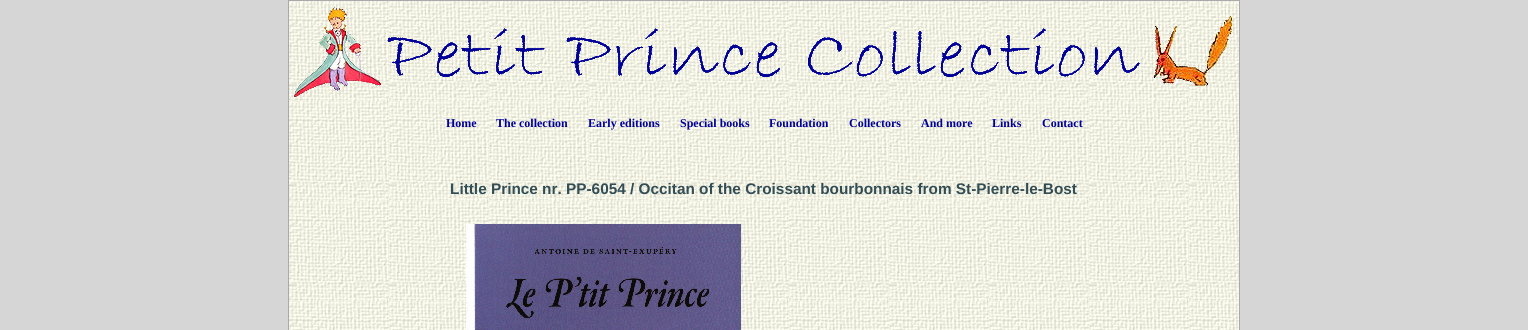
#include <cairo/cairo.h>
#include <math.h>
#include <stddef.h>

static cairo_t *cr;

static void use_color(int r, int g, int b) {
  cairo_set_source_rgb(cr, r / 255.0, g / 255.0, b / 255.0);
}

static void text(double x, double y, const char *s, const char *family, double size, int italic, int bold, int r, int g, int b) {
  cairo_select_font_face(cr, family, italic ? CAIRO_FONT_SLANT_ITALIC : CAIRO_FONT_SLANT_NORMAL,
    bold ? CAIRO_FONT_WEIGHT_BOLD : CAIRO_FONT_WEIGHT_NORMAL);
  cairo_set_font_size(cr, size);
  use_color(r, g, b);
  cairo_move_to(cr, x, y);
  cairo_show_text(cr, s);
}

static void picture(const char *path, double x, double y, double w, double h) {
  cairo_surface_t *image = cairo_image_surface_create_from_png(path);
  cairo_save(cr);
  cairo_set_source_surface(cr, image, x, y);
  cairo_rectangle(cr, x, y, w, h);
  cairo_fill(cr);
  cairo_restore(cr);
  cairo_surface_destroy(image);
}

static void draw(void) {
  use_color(214, 214, 214);
  cairo_paint(cr);
  picture("img_01.png", 289, 1, 950, 329);
  cairo_rectangle(cr, 288.5, 0.5, 951, 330);
  use_color(170, 170, 170);
  cairo_set_line_width(cr, 1);
  cairo_stroke(cr);
  picture("img_02.png", 294, 7, 938, 90);
  picture("img_03.png", 466, 224, 275, 106);
  text(446, 127, "Home", "Liberation Serif", 12, 0, 1, 0, 0, 153);
  text(496, 127, "The collection", "Liberation Serif", 12, 0, 1, 0, 0, 153);
  text(588, 127, "Early editions", "Liberation Serif", 12, 0, 1, 0, 0, 153);
  text(680, 127, "Special books", "Liberation Serif", 12, 0, 1, 0, 0, 153);
  text(769, 127, "Foundation", "Liberation Serif", 12, 0, 1, 0, 0, 153);
  text(849, 127, "Collectors", "Liberation Serif", 12, 0, 1, 0, 0, 153);
  text(921, 127, "And more", "Liberation Serif", 12, 0, 1, 0, 0, 153);
  text(992, 127, "Links", "Liberation Serif", 12, 0, 1, 0, 0, 153);
  text(1042, 127, "Contact", "Liberation Serif", 12, 0, 1, 0, 0, 153);
  text(450, 194, "Little Prince nr. PP-6054 / Occitan of the Croissant bourbonnais from St-Pierre-le-Bost", "Liberation Sans", 15.35, 0, 1, 51, 77, 85);
}

int main(void) {
  cairo_surface_t *surface = cairo_image_surface_create(CAIRO_FORMAT_RGB24, 1528, 330);
  cr = cairo_create(surface);
  cairo_font_options_t *options = cairo_font_options_create();
  cairo_font_options_set_hint_metrics(options, CAIRO_HINT_METRICS_OFF);
  cairo_font_options_set_hint_style(options, CAIRO_HINT_STYLE_NONE);
  cairo_set_font_options(cr, options);
  cairo_set_miter_limit(cr, 4);
  draw();
  cairo_surface_write_to_png(surface, "out.png");
  cairo_font_options_destroy(options);
  cairo_destroy(cr);
  cairo_surface_destroy(surface);
  return 0;
}
